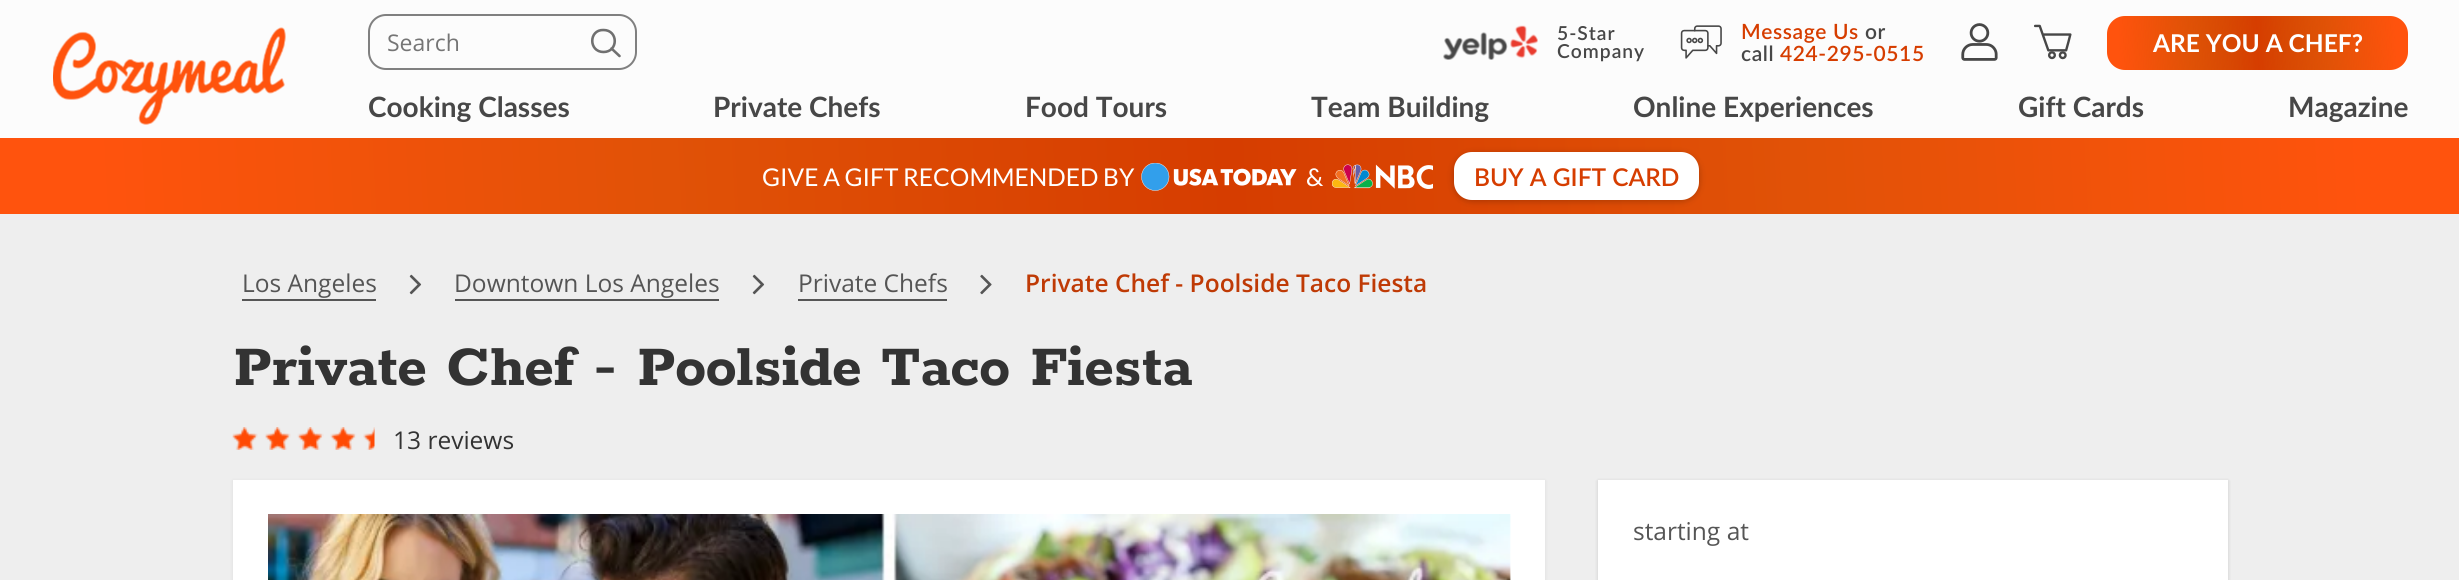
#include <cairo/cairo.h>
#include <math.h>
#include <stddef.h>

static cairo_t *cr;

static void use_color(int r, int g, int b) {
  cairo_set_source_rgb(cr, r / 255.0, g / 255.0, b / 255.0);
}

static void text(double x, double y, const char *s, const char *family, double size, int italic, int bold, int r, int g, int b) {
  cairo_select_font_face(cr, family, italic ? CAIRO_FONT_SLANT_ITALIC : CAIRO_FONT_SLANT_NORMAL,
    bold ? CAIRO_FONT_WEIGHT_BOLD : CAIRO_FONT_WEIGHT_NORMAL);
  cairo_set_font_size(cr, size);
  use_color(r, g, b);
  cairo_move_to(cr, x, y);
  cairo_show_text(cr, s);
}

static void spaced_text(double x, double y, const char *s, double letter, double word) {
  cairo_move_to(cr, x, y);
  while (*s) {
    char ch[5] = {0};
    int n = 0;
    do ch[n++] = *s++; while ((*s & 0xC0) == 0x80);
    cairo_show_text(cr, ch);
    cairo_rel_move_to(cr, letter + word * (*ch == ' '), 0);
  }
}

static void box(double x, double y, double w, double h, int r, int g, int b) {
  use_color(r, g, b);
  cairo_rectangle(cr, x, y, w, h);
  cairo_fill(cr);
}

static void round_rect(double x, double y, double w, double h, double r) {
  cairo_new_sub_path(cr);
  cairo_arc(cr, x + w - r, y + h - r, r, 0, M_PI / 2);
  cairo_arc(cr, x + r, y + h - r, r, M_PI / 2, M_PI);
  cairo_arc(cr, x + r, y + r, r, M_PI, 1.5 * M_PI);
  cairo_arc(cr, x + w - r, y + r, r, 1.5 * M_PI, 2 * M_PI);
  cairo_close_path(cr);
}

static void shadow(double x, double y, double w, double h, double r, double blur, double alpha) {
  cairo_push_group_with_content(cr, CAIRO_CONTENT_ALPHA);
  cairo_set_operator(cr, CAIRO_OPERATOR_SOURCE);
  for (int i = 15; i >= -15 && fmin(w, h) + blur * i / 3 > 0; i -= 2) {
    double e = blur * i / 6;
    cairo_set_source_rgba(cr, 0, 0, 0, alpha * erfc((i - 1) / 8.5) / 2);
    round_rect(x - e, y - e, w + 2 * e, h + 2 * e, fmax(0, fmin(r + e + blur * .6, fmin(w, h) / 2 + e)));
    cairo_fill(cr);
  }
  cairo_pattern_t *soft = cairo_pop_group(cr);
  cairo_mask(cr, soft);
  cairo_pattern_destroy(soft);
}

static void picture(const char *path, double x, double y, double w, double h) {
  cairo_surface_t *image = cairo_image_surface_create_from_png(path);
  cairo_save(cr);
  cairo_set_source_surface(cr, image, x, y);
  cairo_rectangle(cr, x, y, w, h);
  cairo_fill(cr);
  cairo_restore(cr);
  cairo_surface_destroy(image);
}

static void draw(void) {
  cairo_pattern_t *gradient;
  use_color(238, 238, 238);
  cairo_paint(cr);
  box(0, 0, 2459, 138, 252, 252, 252);
  picture("img_01.png", 53, 27, 233, 98);
  round_rect(369, 15, 267, 54, 17);
  use_color(128, 128, 128);
  cairo_stroke(cr);
  cairo_new_path(cr);
  cairo_move_to(cr, 603.5, 52);
  cairo_curve_to(cr, 618.5, 52, 618.5, 30, 603.5, 30);
  cairo_curve_to(cr, 588.5, 29.5, 588.5, 52, 603.5, 52);
  cairo_close_path(cr);
  cairo_move_to(cr, 611.5, 48.5);
  cairo_line_to(cr, 619.5, 56);
  use_color(112, 112, 112);
  cairo_set_line_width(cr, 2.6);
  cairo_set_line_cap(cr, CAIRO_LINE_CAP_ROUND);
  cairo_set_line_join(cr, CAIRO_LINE_JOIN_ROUND);
  cairo_stroke(cr);
  picture("img_02.png", 1443, 25, 95, 35);
  picture("img_03.png", 1680, 25, 42, 34);
  picture("img_04.png", 1961, 23, 37, 38);
  picture("img_05.png", 2034, 24, 38, 36);
  use_color(255, 83, 13);
  round_rect(2107, 16, 301, 54, 18);
  cairo_fill(cr);
  gradient = cairo_pattern_create_linear(2106, 51, 2409, 35);
  cairo_pattern_add_color_stop_rgba(gradient, 0.04, 0.761, 0.318, 0, 0);
  cairo_pattern_add_color_stop_rgba(gradient, 0.27, 0.761, 0.318, 0, 0.5);
  cairo_pattern_add_color_stop_rgba(gradient, 0.5, 0.839, 0.239, 0, 1);
  cairo_pattern_add_color_stop_rgba(gradient, 0.73, 0.761, 0.318, 0, 0.5);
  cairo_pattern_add_color_stop_rgba(gradient, 0.96, 0.761, 0.318, 0, 0);
  cairo_set_source(cr, gradient);
  cairo_pattern_destroy(gradient);
  cairo_rectangle(cr, 2119, 16, 277, 54);
  cairo_fill(cr);
  gradient = cairo_pattern_create_linear(1.4, 240, 2459, 111);
  cairo_pattern_add_color_stop_rgba(gradient, 0.04, 1, 0.325, 0.051, 1);
  cairo_pattern_add_color_stop_rgba(gradient, 0.27, 0.882, 0.322, 0.027, 1);
  cairo_pattern_add_color_stop_rgba(gradient, 0.5, 0.839, 0.239, 0, 1);
  cairo_pattern_add_color_stop_rgba(gradient, 0.73, 0.882, 0.322, 0.027, 1);
  cairo_pattern_add_color_stop_rgba(gradient, 0.96, 1, 0.325, 0.051, 1);
  cairo_set_source(cr, gradient);
  cairo_pattern_destroy(gradient);
  cairo_rectangle(cr, 0, 138, 2459, 76);
  cairo_fill(cr);
  picture("img_06.png", 1141, 163, 156, 28);
  picture("img_07.png", 1332, 164, 101, 25);
  use_color(0, 0, 0);
  shadow(1454, 154, 245, 47, 18, 3.5, 0.25);
  use_color(255, 255, 255);
  round_rect(1454, 152, 245, 48, 18);
  cairo_fill(cr);
  box(242, 299, 134, 2, 85, 85, 85);
  picture("img_08.png", 409, 274, 13, 21);
  box(455, 299, 264, 2, 85, 85, 85);
  picture("img_08.png", 752, 274, 13, 21);
  box(798, 299, 149, 2, 85, 85, 85);
  picture("img_09.png", 980, 274, 12, 21);
  picture("img_10.png", 232, 427, 143, 23);
  use_color(0, 0, 0);
  shadow(233, 481, 1312, 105, 0, 2, 0.08);
  box(233, 480, 1312, 100, 255, 255, 255);
  picture("img_11.png", 268, 514, 1243, 66);
  use_color(0, 0, 0);
  shadow(1598, 481, 630, 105, 0, 2, 0.08);
  shadow(1598, 481, 630, 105, 0, 2, 0.08);
  box(1598, 480, 630, 100, 255, 255, 255);
  text(387, 51, "Search", "Open Sans", 23, 0, 0, 117, 117, 117);
  cairo_select_font_face(cr, "Lato SemiBold", CAIRO_FONT_SLANT_NORMAL, CAIRO_FONT_WEIGHT_NORMAL);
  cairo_set_font_size(cr, 19.25);
  use_color(71, 71, 71);
  spaced_text(1557, 40, "5-Star", 1, 0);
  spaced_text(1557, 58, "Company", 1, 0);
  cairo_set_font_size(cr, 21);
  use_color(214, 61, 0);
  spaced_text(1741, 39, "Message Us", 0.6, 0);
  use_color(71, 71, 71);
  spaced_text(1865, 39, "or", 0.6, 0);
  spaced_text(1741, 61, "call", 0.6, 0);
  use_color(214, 61, 0);
  spaced_text(1780, 61, "424-295-0515", 0.6, 0);
  text(2153, 52, "ARE YOU A CHEF?", "Lato", 24.5, 0, 1, 255, 255, 255);
  text(368, 117, "Cooking Classes", "Lato", 28, 0, 1, 71, 71, 71);
  text(713, 117, "Private Chefs", "Lato", 28, 0, 1, 71, 71, 71);
  text(1025, 117, "Food Tours", "Lato", 28, 0, 1, 71, 71, 71);
  text(1311, 117, "Team Building", "Lato", 28, 0, 1, 71, 71, 71);
  text(1633, 117, "Online Experiences", "Lato", 28, 0, 1, 71, 71, 71);
  text(2018, 117, "Gift Cards", "Lato", 28, 0, 1, 71, 71, 71);
  text(2288, 117, "Magazine", "Lato", 28, 0, 1, 71, 71, 71);
  text(762, 186, "GIVE A GIFT RECOMMENDED BY", "Lato", 24.5, 0, 0, 255, 255, 255);
  text(1306, 186, "&", "Lato", 24.5, 0, 0, 255, 255, 255);
  text(1474, 186, "BUY A GIFT CARD", "Lato SemiBold", 24.5, 0, 0, 214, 61, 0);
  text(242, 292, "Los Angeles", "Open Sans", 24.5, 0, 0, 85, 85, 85);
  text(454, 292, "Downtown Los Angeles", "Open Sans", 24.5, 0, 0, 85, 85, 85);
  text(798, 292, "Private Chefs", "Open Sans", 24.5, 0, 0, 85, 85, 85);
  text(1025, 292, "Private Chef - Poolside Taco Fiesta", "Open Sans SemiBold", 24.5, 0, 0, 191, 58, 5);
  text(233, 385, "Private Chef - Poolside Taco Fiesta", "Rokkitt", 63, 0, 1, 51, 51, 51);
  text(393, 449, "13 reviews", "Open Sans", 24.5, 0, 0, 51, 51, 51);
  text(1633, 540, "starting at", "Open Sans", 24.5, 0, 0, 85, 85, 85);
}

int main(void) {
  cairo_surface_t *surface = cairo_image_surface_create(CAIRO_FORMAT_RGB24, 2459, 580);
  cr = cairo_create(surface);
  cairo_font_options_t *options = cairo_font_options_create();
  cairo_font_options_set_hint_metrics(options, CAIRO_HINT_METRICS_OFF);
  cairo_font_options_set_hint_style(options, CAIRO_HINT_STYLE_NONE);
  cairo_set_font_options(cr, options);
  cairo_set_miter_limit(cr, 4);
  draw();
  cairo_surface_write_to_png(surface, "out.png");
  cairo_font_options_destroy(options);
  cairo_destroy(cr);
  cairo_surface_destroy(surface);
  return 0;
}
